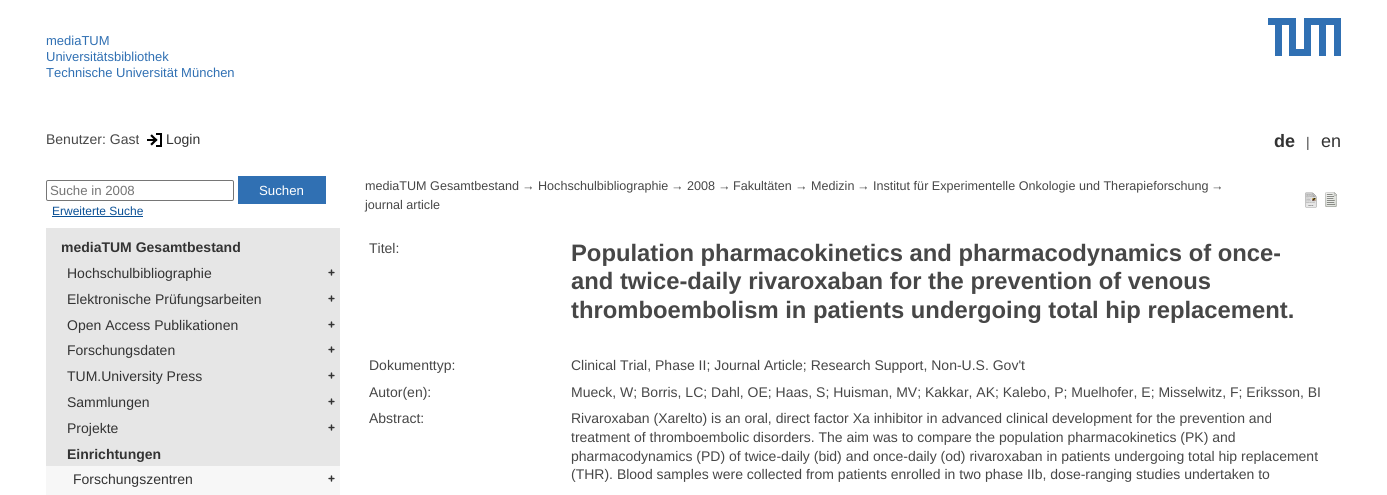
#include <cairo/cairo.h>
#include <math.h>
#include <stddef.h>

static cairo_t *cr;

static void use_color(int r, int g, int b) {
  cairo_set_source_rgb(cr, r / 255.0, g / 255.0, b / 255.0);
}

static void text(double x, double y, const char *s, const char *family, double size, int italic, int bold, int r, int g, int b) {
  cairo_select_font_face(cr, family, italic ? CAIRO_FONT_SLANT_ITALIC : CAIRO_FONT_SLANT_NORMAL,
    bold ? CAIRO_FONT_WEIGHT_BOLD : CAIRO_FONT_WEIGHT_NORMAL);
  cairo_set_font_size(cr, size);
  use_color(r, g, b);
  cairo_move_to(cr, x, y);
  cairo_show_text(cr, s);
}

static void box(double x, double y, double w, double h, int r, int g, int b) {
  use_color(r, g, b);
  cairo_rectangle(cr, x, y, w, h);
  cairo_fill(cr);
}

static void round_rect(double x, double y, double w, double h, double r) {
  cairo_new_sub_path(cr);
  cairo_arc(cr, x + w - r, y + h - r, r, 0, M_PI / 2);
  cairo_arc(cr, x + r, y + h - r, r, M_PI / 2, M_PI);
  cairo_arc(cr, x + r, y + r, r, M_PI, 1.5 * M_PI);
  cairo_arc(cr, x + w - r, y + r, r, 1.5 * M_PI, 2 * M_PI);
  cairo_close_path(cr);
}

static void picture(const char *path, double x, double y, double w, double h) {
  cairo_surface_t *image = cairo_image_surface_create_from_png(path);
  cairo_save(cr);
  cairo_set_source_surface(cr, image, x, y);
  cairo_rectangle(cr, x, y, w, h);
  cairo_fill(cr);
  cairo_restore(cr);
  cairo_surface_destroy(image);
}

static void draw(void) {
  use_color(255, 255, 255);
  cairo_paint(cr);
  picture("img_01.png", 1268, 18, 73, 38);
  picture("img_02.png", 147, 133, 15, 14);
  round_rect(46.5, 180.5, 187, 20, 1.5);
  use_color(118, 118, 118);
  cairo_set_line_width(cr, 1);
  cairo_stroke(cr);
  box(238, 176, 88, 28, 48, 112, 179);
  box(52, 216, 91, 1, 10, 80, 150);
  box(46, 228, 294, 238, 230, 230, 230);
  picture("img_03.png", 328, 269, 7, 7);
  picture("img_03.png", 328, 295, 7, 7);
  picture("img_03.png", 328, 321, 7, 7);
  picture("img_03.png", 328, 346, 7, 7);
  picture("img_03.png", 328, 372, 7, 7);
  picture("img_03.png", 328, 398, 7, 7);
  picture("img_03.png", 328, 424, 7, 7);
  box(46, 466, 294, 29, 247, 247, 247);
  picture("img_04.png", 328, 475, 7, 7);
  picture("img_05.png", 1305, 192, 12, 16);
  picture("img_06.png", 1325, 192, 12, 15);
  text(46, 45, "mediaTUM", "Liberation Sans", 13, 0, 0, 48, 112, 179);
  text(46, 61, "Universitätsbibliothek", "Liberation Sans", 13, 0, 0, 48, 112, 179);
  text(46, 77, "Technische Universität München", "Liberation Sans", 13, 0, 0, 48, 112, 179);
  text(46, 144, "Benutzer: Gast", "Liberation Sans", 14, 0, 0, 71, 71, 71);
  text(166, 144, "Login", "Liberation Sans", 14, 0, 0, 51, 51, 51);
  text(1274, 147, "de", "Liberation Sans", 18, 0, 1, 51, 51, 51);
  text(1306, 147, "|", "Liberation Sans", 14, 0, 0, 71, 71, 71);
  text(1321, 147, "en", "Liberation Sans", 18, 0, 0, 51, 51, 51);
  text(50, 195, "Suche in 2008", "Liberation Sans", 13.25, 0, 0, 117, 117, 117);
  text(259, 195, "Suchen", "Liberation Sans", 13.25, 0, 0, 255, 255, 255);
  text(52, 215, "Erweiterte Suche", "Liberation Sans", 12, 0, 0, 10, 80, 150);
  text(61, 252, "mediaTUM Gesamtbestand", "Liberation Sans", 14, 0, 1, 51, 51, 51);
  text(67, 278, "Hochschulbibliographie", "Liberation Sans", 14, 0, 0, 51, 51, 51);
  text(67, 304, "Elektronische Prüfungsarbeiten", "Liberation Sans", 14, 0, 0, 51, 51, 51);
  text(67, 330, "Open Access Publikationen", "Liberation Sans", 14, 0, 0, 51, 51, 51);
  text(67, 355, "Forschungsdaten", "Liberation Sans", 14, 0, 0, 51, 51, 51);
  text(67, 381, "TUM.University Press", "Liberation Sans", 14, 0, 0, 51, 51, 51);
  text(67, 407, "Sammlungen", "Liberation Sans", 14, 0, 0, 51, 51, 51);
  text(67, 433, "Projekte", "Liberation Sans", 14, 0, 0, 51, 51, 51);
  text(67, 459, "Einrichtungen", "Liberation Sans", 14, 0, 1, 51, 51, 51);
  text(73, 484, "Forschungszentren", "Liberation Sans", 14, 0, 0, 51, 51, 51);
  text(365, 190, "mediaTUM Gesamtbestand", "Liberation Sans", 12.6, 0, 0, 71, 71, 71);
  text(522, 190, "→", "Liberation Sans", 12.6, 0, 0, 71, 71, 71);
  text(538, 190, "Hochschulbibliographie", "Liberation Sans", 12.6, 0, 0, 71, 71, 71);
  text(671, 190, "→", "Liberation Sans", 12.6, 0, 0, 71, 71, 71);
  text(687, 190, "2008", "Liberation Sans", 12.6, 0, 0, 71, 71, 71);
  text(718, 190, "→", "Liberation Sans", 12.6, 0, 0, 71, 71, 71);
  text(733, 190, "Fakultäten", "Liberation Sans", 12.6, 0, 0, 71, 71, 71);
  text(795, 190, "→", "Liberation Sans", 12.6, 0, 0, 71, 71, 71);
  text(811, 190, "Medizin", "Liberation Sans", 12.6, 0, 0, 71, 71, 71);
  text(857, 190, "→", "Liberation Sans", 12.6, 0, 0, 71, 71, 71);
  text(873, 190, "Institut für Experimentelle Onkologie und Therapieforschung", "Liberation Sans", 12.6, 0, 0, 71, 71, 71);
  text(1211, 190, "→", "Liberation Sans", 12.6, 0, 0, 71, 71, 71);
  text(365, 209, "journal article", "Liberation Sans", 12.6, 0, 0, 71, 71, 71);
  text(369, 253, "Titel:", "Liberation Sans", 14, 0, 0, 71, 71, 71);
  text(571, 261, "Population pharmacokinetics and pharmacodynamics of once-", "Liberation Sans", 23.8, 0, 1, 71, 71, 71);
  text(571, 289, "and twice-daily rivaroxaban for the prevention of venous", "Liberation Sans", 23.8, 0, 1, 71, 71, 71);
  text(571, 318, "thromboembolism in patients undergoing total hip replacement.", "Liberation Sans", 23.8, 0, 1, 71, 71, 71);
  text(369, 370, "Dokumenttyp:", "Liberation Sans", 14, 0, 0, 71, 71, 71);
  text(571, 370, "Clinical Trial, Phase II; Journal Article; Research Support, Non-U.S. Gov't", "Liberation Sans", 14, 0, 0, 71, 71, 71);
  text(369, 397, "Autor(en):", "Liberation Sans", 14, 0, 0, 71, 71, 71);
  text(571, 397, "Mueck, W; Borris, LC; Dahl, OE; Haas, S; Huisman, MV; Kakkar, AK; Kalebo, P; Muelhofer, E; Misselwitz, F; Eriksson, BI", "Liberation Sans", 14, 0, 0, 71, 71, 71);
  text(369, 423, "Abstract:", "Liberation Sans", 14, 0, 0, 71, 71, 71);
  text(571, 423, "Rivaroxaban (Xarelto) is an oral, direct factor Xa inhibitor in advanced clinical development for the prevention and", "Liberation Sans", 14, 0, 0, 71, 71, 71);
  text(571, 442, "treatment of thromboembolic disorders. The aim was to compare the population pharmacokinetics (PK) and", "Liberation Sans", 14, 0, 0, 71, 71, 71);
  text(571, 461, "pharmacodynamics (PD) of twice-daily (bid) and once-daily (od) rivaroxaban in patients undergoing total hip replacement", "Liberation Sans", 14, 0, 0, 71, 71, 71);
  text(571, 479, "(THR). Blood samples were collected from patients enrolled in two phase IIb, dose-ranging studies undertaken to", "Liberation Sans", 14, 0, 0, 71, 71, 71);
}

int main(void) {
  cairo_surface_t *surface = cairo_image_surface_create(CAIRO_FORMAT_RGB24, 1387, 495);
  cr = cairo_create(surface);
  cairo_font_options_t *options = cairo_font_options_create();
  cairo_font_options_set_hint_metrics(options, CAIRO_HINT_METRICS_OFF);
  cairo_font_options_set_hint_style(options, CAIRO_HINT_STYLE_NONE);
  cairo_set_font_options(cr, options);
  cairo_set_miter_limit(cr, 4);
  draw();
  cairo_surface_write_to_png(surface, "out.png");
  cairo_font_options_destroy(options);
  cairo_destroy(cr);
  cairo_surface_destroy(surface);
  return 0;
}
